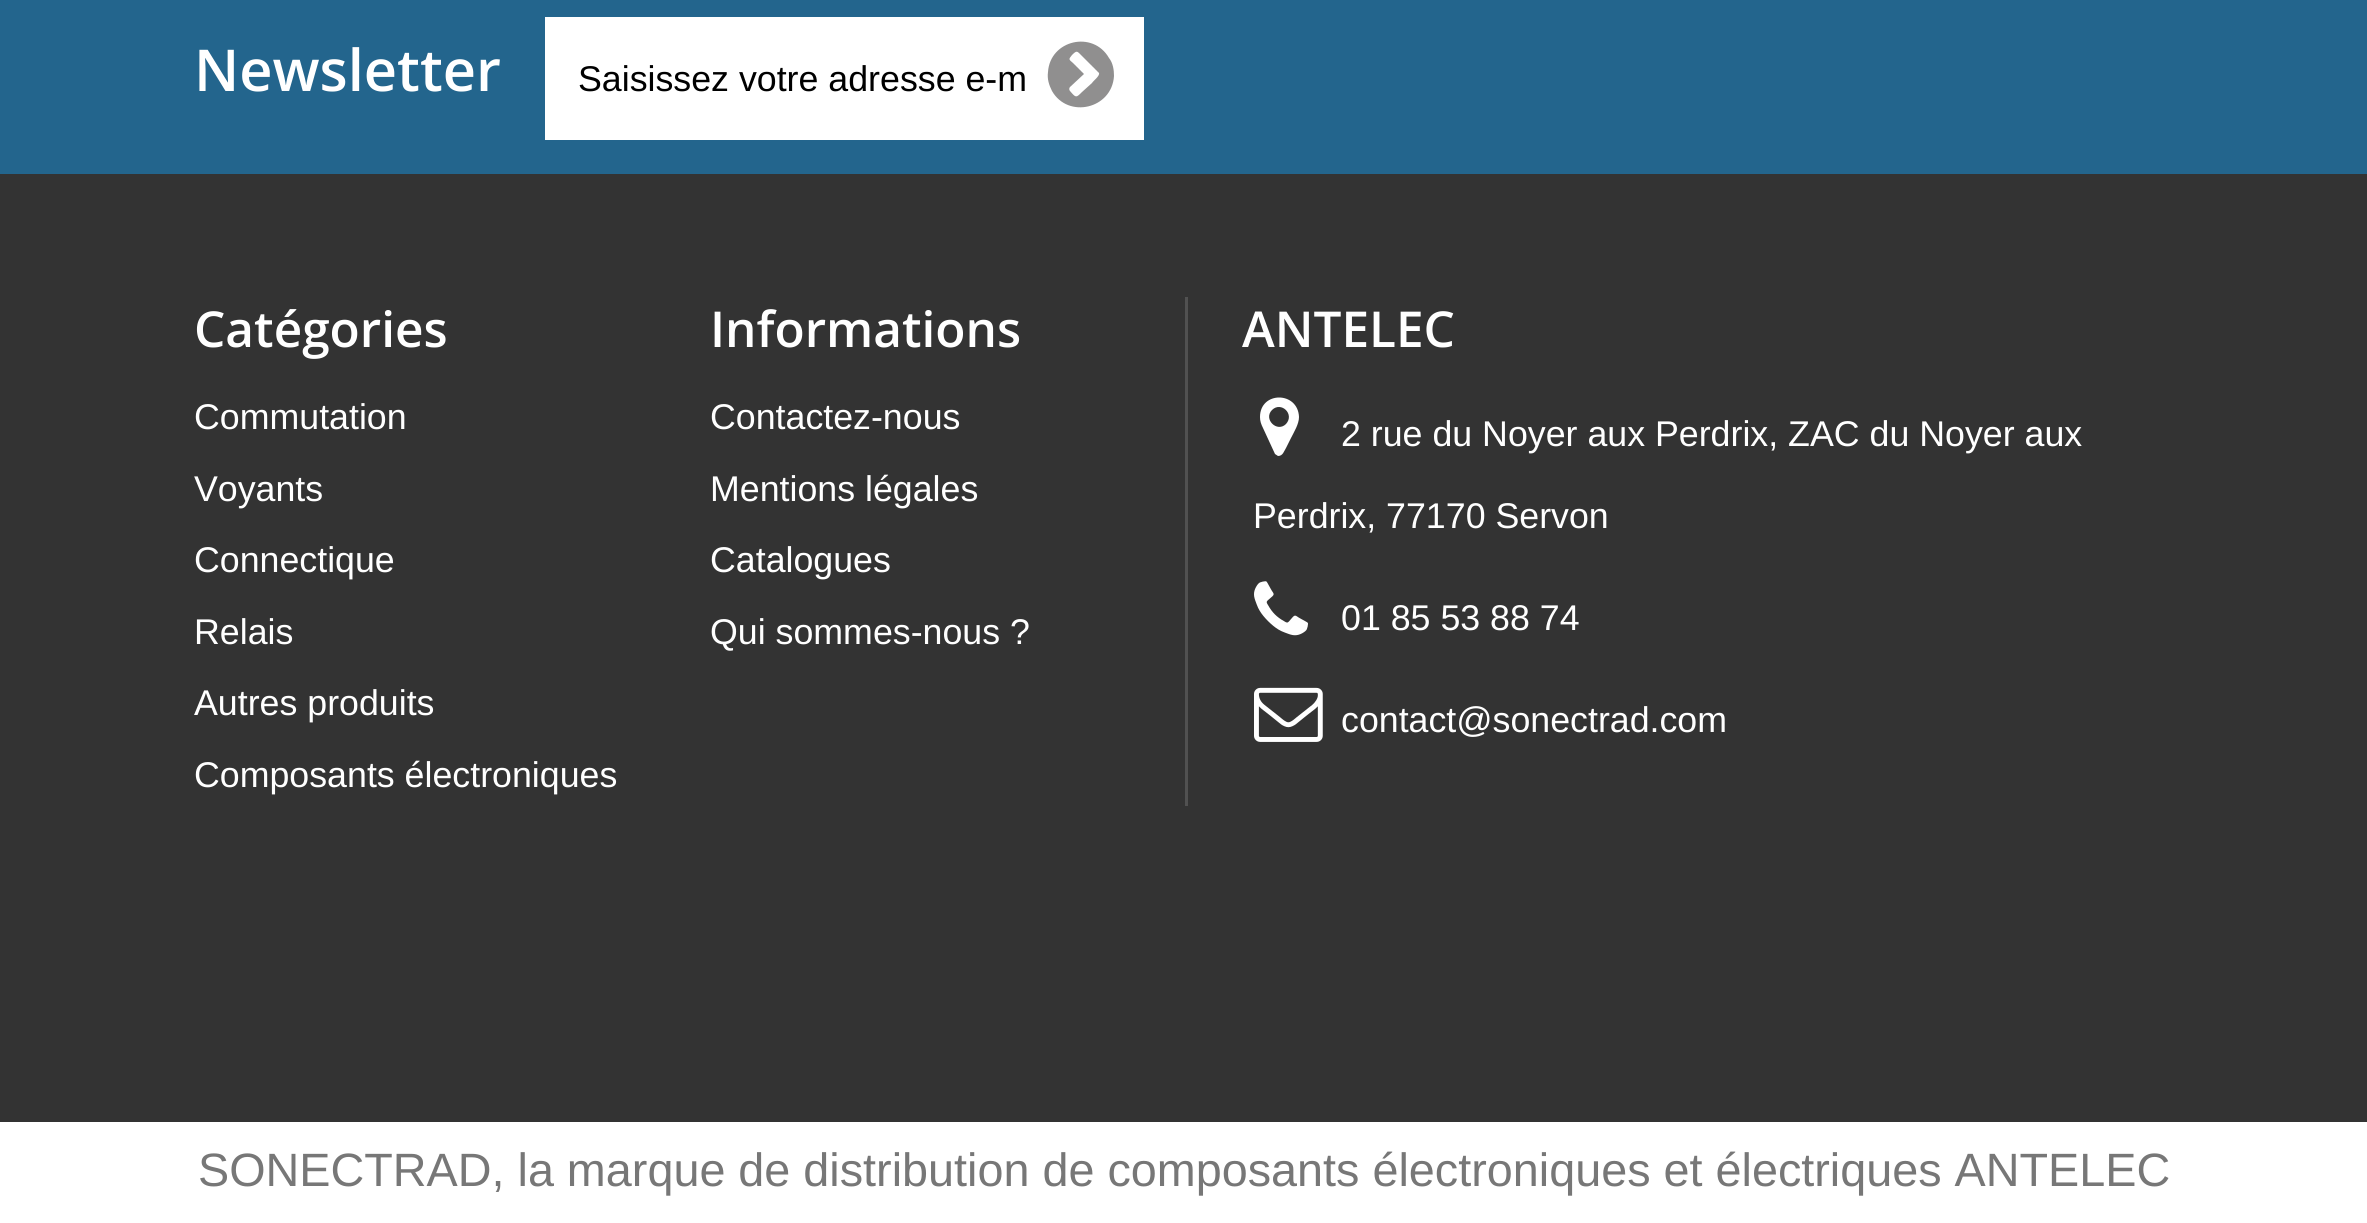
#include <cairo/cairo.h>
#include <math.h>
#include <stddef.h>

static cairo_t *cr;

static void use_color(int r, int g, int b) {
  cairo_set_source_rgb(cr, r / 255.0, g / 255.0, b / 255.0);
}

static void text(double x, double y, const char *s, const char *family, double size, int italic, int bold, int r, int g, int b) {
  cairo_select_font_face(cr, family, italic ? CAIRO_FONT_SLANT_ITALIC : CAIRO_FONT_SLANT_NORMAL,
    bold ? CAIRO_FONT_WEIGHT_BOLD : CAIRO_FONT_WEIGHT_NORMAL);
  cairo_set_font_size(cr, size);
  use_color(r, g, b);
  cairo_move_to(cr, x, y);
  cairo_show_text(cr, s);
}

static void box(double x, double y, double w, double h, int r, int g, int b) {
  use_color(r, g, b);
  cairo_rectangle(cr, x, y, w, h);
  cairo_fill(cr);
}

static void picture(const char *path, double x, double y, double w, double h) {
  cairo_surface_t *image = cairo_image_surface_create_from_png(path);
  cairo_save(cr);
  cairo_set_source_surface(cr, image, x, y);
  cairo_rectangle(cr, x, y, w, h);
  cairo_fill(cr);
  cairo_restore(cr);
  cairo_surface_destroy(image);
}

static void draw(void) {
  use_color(255, 255, 255);
  cairo_paint(cr);
  box(0, 174, 2367, 948, 51, 51, 51);
  box(0, 0, 2367, 174, 35, 101, 141);
  box(545, 17, 599, 123, 255, 255, 255);
  use_color(144, 143, 143);
  cairo_new_path(cr);
  cairo_move_to(cr, 1052, 91);
  cairo_curve_to(cr, 1049, 85, 1047, 79, 1048, 72);
  cairo_curve_to(cr, 1050, 40, 1093, 30, 1109, 58);
  cairo_curve_to(cr, 1113, 63, 1114, 70, 1114, 76);
  cairo_curve_to(cr, 1112, 109, 1068, 119, 1052, 91);
  cairo_close_path(cr);
  cairo_move_to(cr, 1070, 87);
  cairo_curve_to(cr, 1069, 88, 1069, 90, 1070, 91);
  cairo_curve_to(cr, 1076, 98, 1076, 98, 1082, 92);
  cairo_line_to(cr, 1092, 83);
  cairo_curve_to(cr, 1093, 81, 1100, 76, 1099, 73);
  cairo_line_to(cr, 1082, 56);
  cairo_curve_to(cr, 1077, 51, 1077, 50, 1072, 55);
  cairo_curve_to(cr, 1069, 59, 1068, 59, 1073, 63);
  cairo_line_to(cr, 1084, 74);
  cairo_close_path(cr);
  cairo_fill(cr);
  box(1185, 297, 3, 509, 81, 81, 81);
  use_color(255, 255, 255);
  cairo_new_path(cr);
  cairo_move_to(cr, 1260, 417);
  cairo_curve_to(cr, 1260, 391, 1298, 391, 1299, 417);
  cairo_curve_to(cr, 1299, 424, 1294, 432, 1291, 438);
  cairo_line_to(cr, 1286, 448);
  cairo_curve_to(cr, 1284, 451, 1283, 456, 1278, 456);
  cairo_line_to(cr, 1275, 454);
  cairo_line_to(cr, 1263, 428);
  cairo_curve_to(cr, 1261, 424, 1260, 421, 1260, 417);
  cairo_close_path(cr);
  cairo_move_to(cr, 1272, 410);
  cairo_curve_to(cr, 1263, 419, 1277, 433, 1286, 424);
  cairo_curve_to(cr, 1295, 414, 1281, 401, 1272, 410);
  cairo_close_path(cr);
  cairo_fill(cr);
  picture("img_01.png", 1254, 581, 54, 55);
  picture("img_02.png", 1254, 687, 69, 55);
  text(194, 91, "Newsletter", "Open Sans SemiBold", 57.75, 0, 0, 255, 255, 255);
  text(578, 91, "Saisissez votre adresse e-m", "Liberation Sans", 35.75, 0, 0, 0, 0, 0);
  text(194, 347, "Catégories", "Open Sans SemiBold", 49.5, 0, 0, 255, 255, 255);
  text(194, 429, "Commutation", "Liberation Sans", 35.75, 0, 0, 255, 255, 255);
  text(194, 501, "Voyants", "Liberation Sans", 35.75, 0, 0, 255, 255, 255);
  text(194, 572, "Connectique", "Liberation Sans", 35.75, 0, 0, 255, 255, 255);
  text(194, 644, "Relais", "Liberation Sans", 35.75, 0, 0, 255, 255, 255);
  text(194, 715, "Autres produits", "Liberation Sans", 35.75, 0, 0, 255, 255, 255);
  text(194, 787, "Composants électroniques", "Liberation Sans", 35.75, 0, 0, 255, 255, 255);
  text(710, 347, "Informations", "Open Sans SemiBold", 49.5, 0, 0, 255, 255, 255);
  text(710, 429, "Contactez-nous", "Liberation Sans", 35.75, 0, 0, 255, 255, 255);
  text(710, 501, "Mentions légales", "Liberation Sans", 35.75, 0, 0, 255, 255, 255);
  text(710, 572, "Catalogues", "Liberation Sans", 35.75, 0, 0, 255, 255, 255);
  text(710, 644, "Qui sommes-nous ?", "Liberation Sans", 35.75, 0, 0, 255, 255, 255);
  text(1242, 347, "ANTELEC", "Open Sans SemiBold", 49.5, 0, 0, 255, 255, 255);
  text(1341, 446, "2 rue du Noyer aux Perdrix, ZAC du Noyer aux", "Liberation Sans", 35.75, 0, 0, 255, 255, 255);
  text(1253, 528, "Perdrix, 77170 Servon", "Liberation Sans", 35.75, 0, 0, 255, 255, 255);
  text(1341, 630, "01 85 53 88 74", "Liberation Sans", 35.75, 0, 0, 255, 255, 255);
  text(1341, 732, "contact@sonectrad.com", "Liberation Sans", 35.75, 0, 0, 255, 255, 255);
  text(198, 1186, "SONECTRAD, la marque de distribution de composants électroniques et électriques ANTELEC", "Liberation Sans", 46.75, 0, 0, 119, 119, 119);
}

int main(void) {
  cairo_surface_t *surface = cairo_image_surface_create(CAIRO_FORMAT_RGB24, 2367, 1223);
  cr = cairo_create(surface);
  cairo_font_options_t *options = cairo_font_options_create();
  cairo_font_options_set_hint_metrics(options, CAIRO_HINT_METRICS_OFF);
  cairo_font_options_set_hint_style(options, CAIRO_HINT_STYLE_NONE);
  cairo_set_font_options(cr, options);
  cairo_set_miter_limit(cr, 4);
  draw();
  cairo_surface_write_to_png(surface, "out.png");
  cairo_font_options_destroy(options);
  cairo_destroy(cr);
  cairo_surface_destroy(surface);
  return 0;
}
